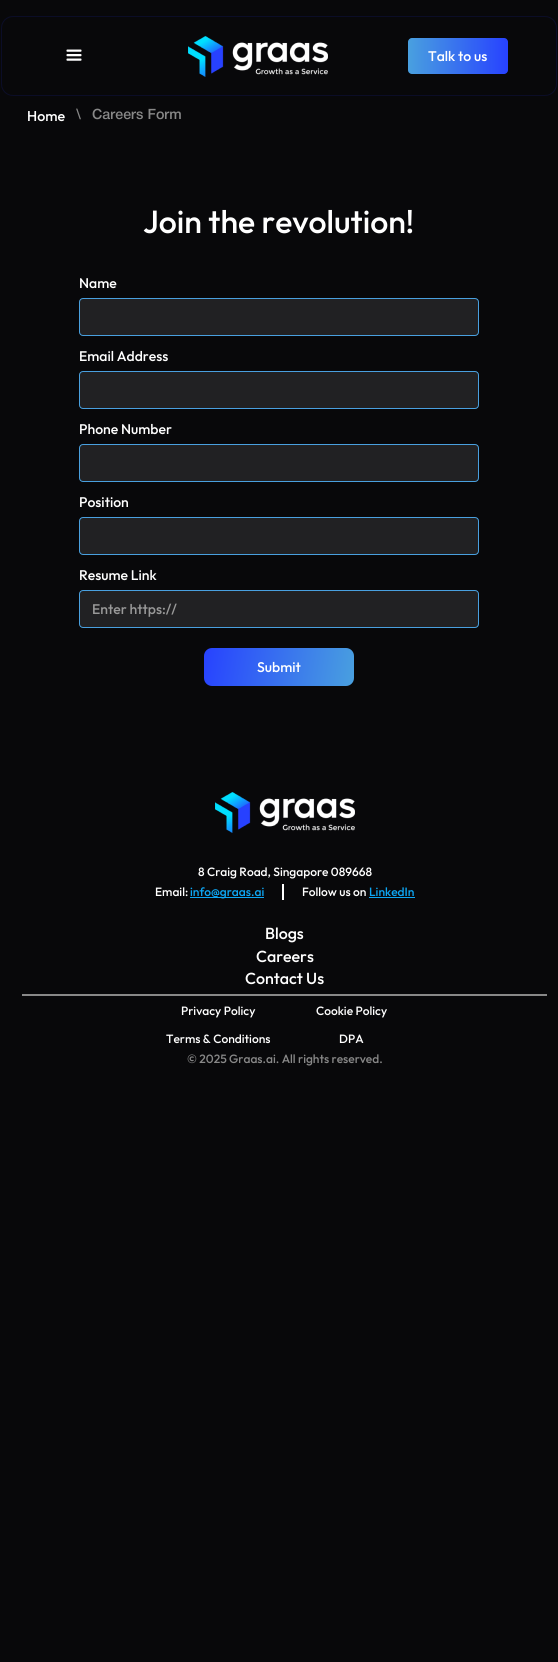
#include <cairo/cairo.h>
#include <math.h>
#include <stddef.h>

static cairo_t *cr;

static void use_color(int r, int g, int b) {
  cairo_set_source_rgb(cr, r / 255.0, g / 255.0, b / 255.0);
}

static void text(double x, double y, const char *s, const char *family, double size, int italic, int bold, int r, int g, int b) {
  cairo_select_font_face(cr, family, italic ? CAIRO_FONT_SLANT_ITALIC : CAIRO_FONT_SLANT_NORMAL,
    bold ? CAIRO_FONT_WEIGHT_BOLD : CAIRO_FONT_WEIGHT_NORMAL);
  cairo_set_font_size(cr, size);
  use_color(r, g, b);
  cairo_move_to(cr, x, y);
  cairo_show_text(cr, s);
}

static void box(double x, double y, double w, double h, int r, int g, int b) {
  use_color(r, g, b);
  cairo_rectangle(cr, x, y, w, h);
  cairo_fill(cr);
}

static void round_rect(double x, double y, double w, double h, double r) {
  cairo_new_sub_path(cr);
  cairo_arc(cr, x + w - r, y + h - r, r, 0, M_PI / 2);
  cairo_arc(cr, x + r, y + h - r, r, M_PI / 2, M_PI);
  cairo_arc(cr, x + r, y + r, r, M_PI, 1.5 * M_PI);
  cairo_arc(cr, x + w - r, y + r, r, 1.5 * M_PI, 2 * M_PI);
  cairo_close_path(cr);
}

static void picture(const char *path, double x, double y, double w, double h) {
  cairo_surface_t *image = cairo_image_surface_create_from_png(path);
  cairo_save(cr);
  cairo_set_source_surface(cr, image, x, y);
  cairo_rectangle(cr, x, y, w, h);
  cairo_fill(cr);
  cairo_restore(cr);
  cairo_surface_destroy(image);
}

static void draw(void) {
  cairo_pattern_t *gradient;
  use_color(8, 8, 10);
  cairo_paint(cr);
  round_rect(1.5, 16.5, 555, 79, 11.5);
  use_color(11, 13, 39);
  cairo_set_line_width(cr, 1);
  cairo_stroke(cr);
  picture("img_01.png", 66, 49, 16, 12);
  picture("img_02.png", 188, 36, 140, 41);
  gradient = cairo_pattern_create_linear(408, 56, 508, 56);
  cairo_pattern_add_color_stop_rgba(gradient, 0, 0.286, 0.627, 0.875, 1);
  cairo_pattern_add_color_stop_rgba(gradient, 1, 0.153, 0.259, 1, 1);
  cairo_set_source(cr, gradient);
  cairo_pattern_destroy(gradient);
  round_rect(408, 38, 100, 36, 4);
  cairo_fill(cr);
  use_color(33, 33, 35);
  round_rect(79.5, 298.5, 399, 37, 3.5);
  cairo_fill_preserve(cr);
  use_color(73, 160, 223);
  cairo_stroke(cr);
  use_color(33, 33, 35);
  round_rect(79.5, 371.5, 399, 37, 3.5);
  cairo_fill_preserve(cr);
  use_color(73, 160, 223);
  cairo_stroke(cr);
  use_color(33, 33, 35);
  round_rect(79.5, 444.5, 399, 37, 3.5);
  cairo_fill_preserve(cr);
  use_color(73, 160, 223);
  cairo_stroke(cr);
  use_color(33, 33, 35);
  round_rect(79.5, 517.5, 399, 37, 3.5);
  cairo_fill_preserve(cr);
  use_color(73, 160, 223);
  cairo_stroke(cr);
  use_color(33, 33, 35);
  round_rect(79.5, 590.5, 399, 37, 3.5);
  cairo_fill_preserve(cr);
  use_color(73, 160, 223);
  cairo_stroke(cr);
  gradient = cairo_pattern_create_linear(355, 680, 203, 654);
  cairo_pattern_add_color_stop_rgba(gradient, 0, 0.286, 0.627, 0.875, 1);
  cairo_pattern_add_color_stop_rgba(gradient, 1, 0.153, 0.259, 1, 1);
  cairo_set_source(cr, gradient);
  cairo_pattern_destroy(gradient);
  round_rect(204, 648, 150, 38, 8);
  cairo_fill(cr);
  picture("img_03.png", 215, 792, 140, 41);
  box(190, 897, 74, 1, 13, 167, 245);
  box(282, 884, 2, 16, 255, 255, 255);
  box(369, 897, 46, 1, 13, 167, 245);
  box(22, 994, 525, 2, 136, 136, 136);
  text(428, 61, "Talk to us", "Outfit Medium", 14, 0, 0, 255, 255, 255);
  text(27, 121, "Home", "Outfit Medium", 14.25, 0, 0, 255, 255, 255);
  text(76, 119, "\\", "Helvetica Neue Medium", 14.25, 0, 0, 136, 136, 136);
  text(92, 119, "Careers Form", "Helvetica Neue Medium", 14.25, 0, 0, 136, 136, 136);
  text(143, 233, "Join the revolution!", "Outfit Medium", 32, 0, 0, 255, 255, 255);
  text(79, 288, "Name", "Outfit Medium", 14, 0, 0, 255, 255, 255);
  text(79, 361, "Email Address", "Outfit Medium", 14, 0, 0, 255, 255, 255);
  text(79, 434, "Phone Number", "Outfit Medium", 14, 0, 0, 255, 255, 255);
  text(79, 507, "Position", "Outfit Medium", 14, 0, 0, 255, 255, 255);
  text(79, 580, "Resume Link", "Outfit Medium", 14, 0, 0, 255, 255, 255);
  text(92, 614, "Enter https://", "Outfit Medium", 14, 0, 0, 153, 153, 153);
  text(257, 672, "Submit", "Outfit Medium", 14, 0, 0, 255, 255, 255);
  text(198, 876, "8 Craig Road, Singapore 089668", "Outfit Medium", 12, 0, 0, 255, 255, 255);
  text(155, 896, "Email:", "Outfit Medium", 12, 0, 0, 255, 255, 255);
  text(190, 896, "info@graas.ai", "Outfit Medium", 12, 0, 0, 13, 167, 245);
  text(302, 896, "Follow us on", "Outfit Medium", 12, 0, 0, 255, 255, 255);
  text(369, 896, "LinkedIn", "Outfit Medium", 12, 0, 0, 13, 167, 245);
  text(265, 939, "Blogs", "Outfit Medium", 16, 0, 0, 255, 255, 255);
  text(256, 962, "Careers", "Outfit Medium", 16, 0, 0, 255, 255, 255);
  text(245, 984, "Contact Us", "Outfit Medium", 16, 0, 0, 255, 255, 255);
  text(181, 1015, "Privacy Policy", "Outfit Medium", 12, 0, 0, 255, 255, 255);
  text(316, 1015, "Cookie Policy", "Outfit Medium", 12, 0, 0, 255, 255, 255);
  text(166, 1043, "Terms & Conditions", "Outfit Medium", 12, 0, 0, 255, 255, 255);
  text(339, 1043, "DPA", "Outfit Medium", 12, 0, 0, 255, 255, 255);
  text(187, 1063, "© 2025 Graas.ai. All rights reserved.", "Outfit Medium", 12, 0, 0, 136, 136, 136);
}

int main(void) {
  cairo_surface_t *surface = cairo_image_surface_create(CAIRO_FORMAT_RGB24, 558, 1662);
  cr = cairo_create(surface);
  cairo_font_options_t *options = cairo_font_options_create();
  cairo_font_options_set_hint_metrics(options, CAIRO_HINT_METRICS_OFF);
  cairo_font_options_set_hint_style(options, CAIRO_HINT_STYLE_NONE);
  cairo_set_font_options(cr, options);
  cairo_set_miter_limit(cr, 4);
  draw();
  cairo_surface_write_to_png(surface, "out.png");
  cairo_font_options_destroy(options);
  cairo_destroy(cr);
  cairo_surface_destroy(surface);
  return 0;
}
